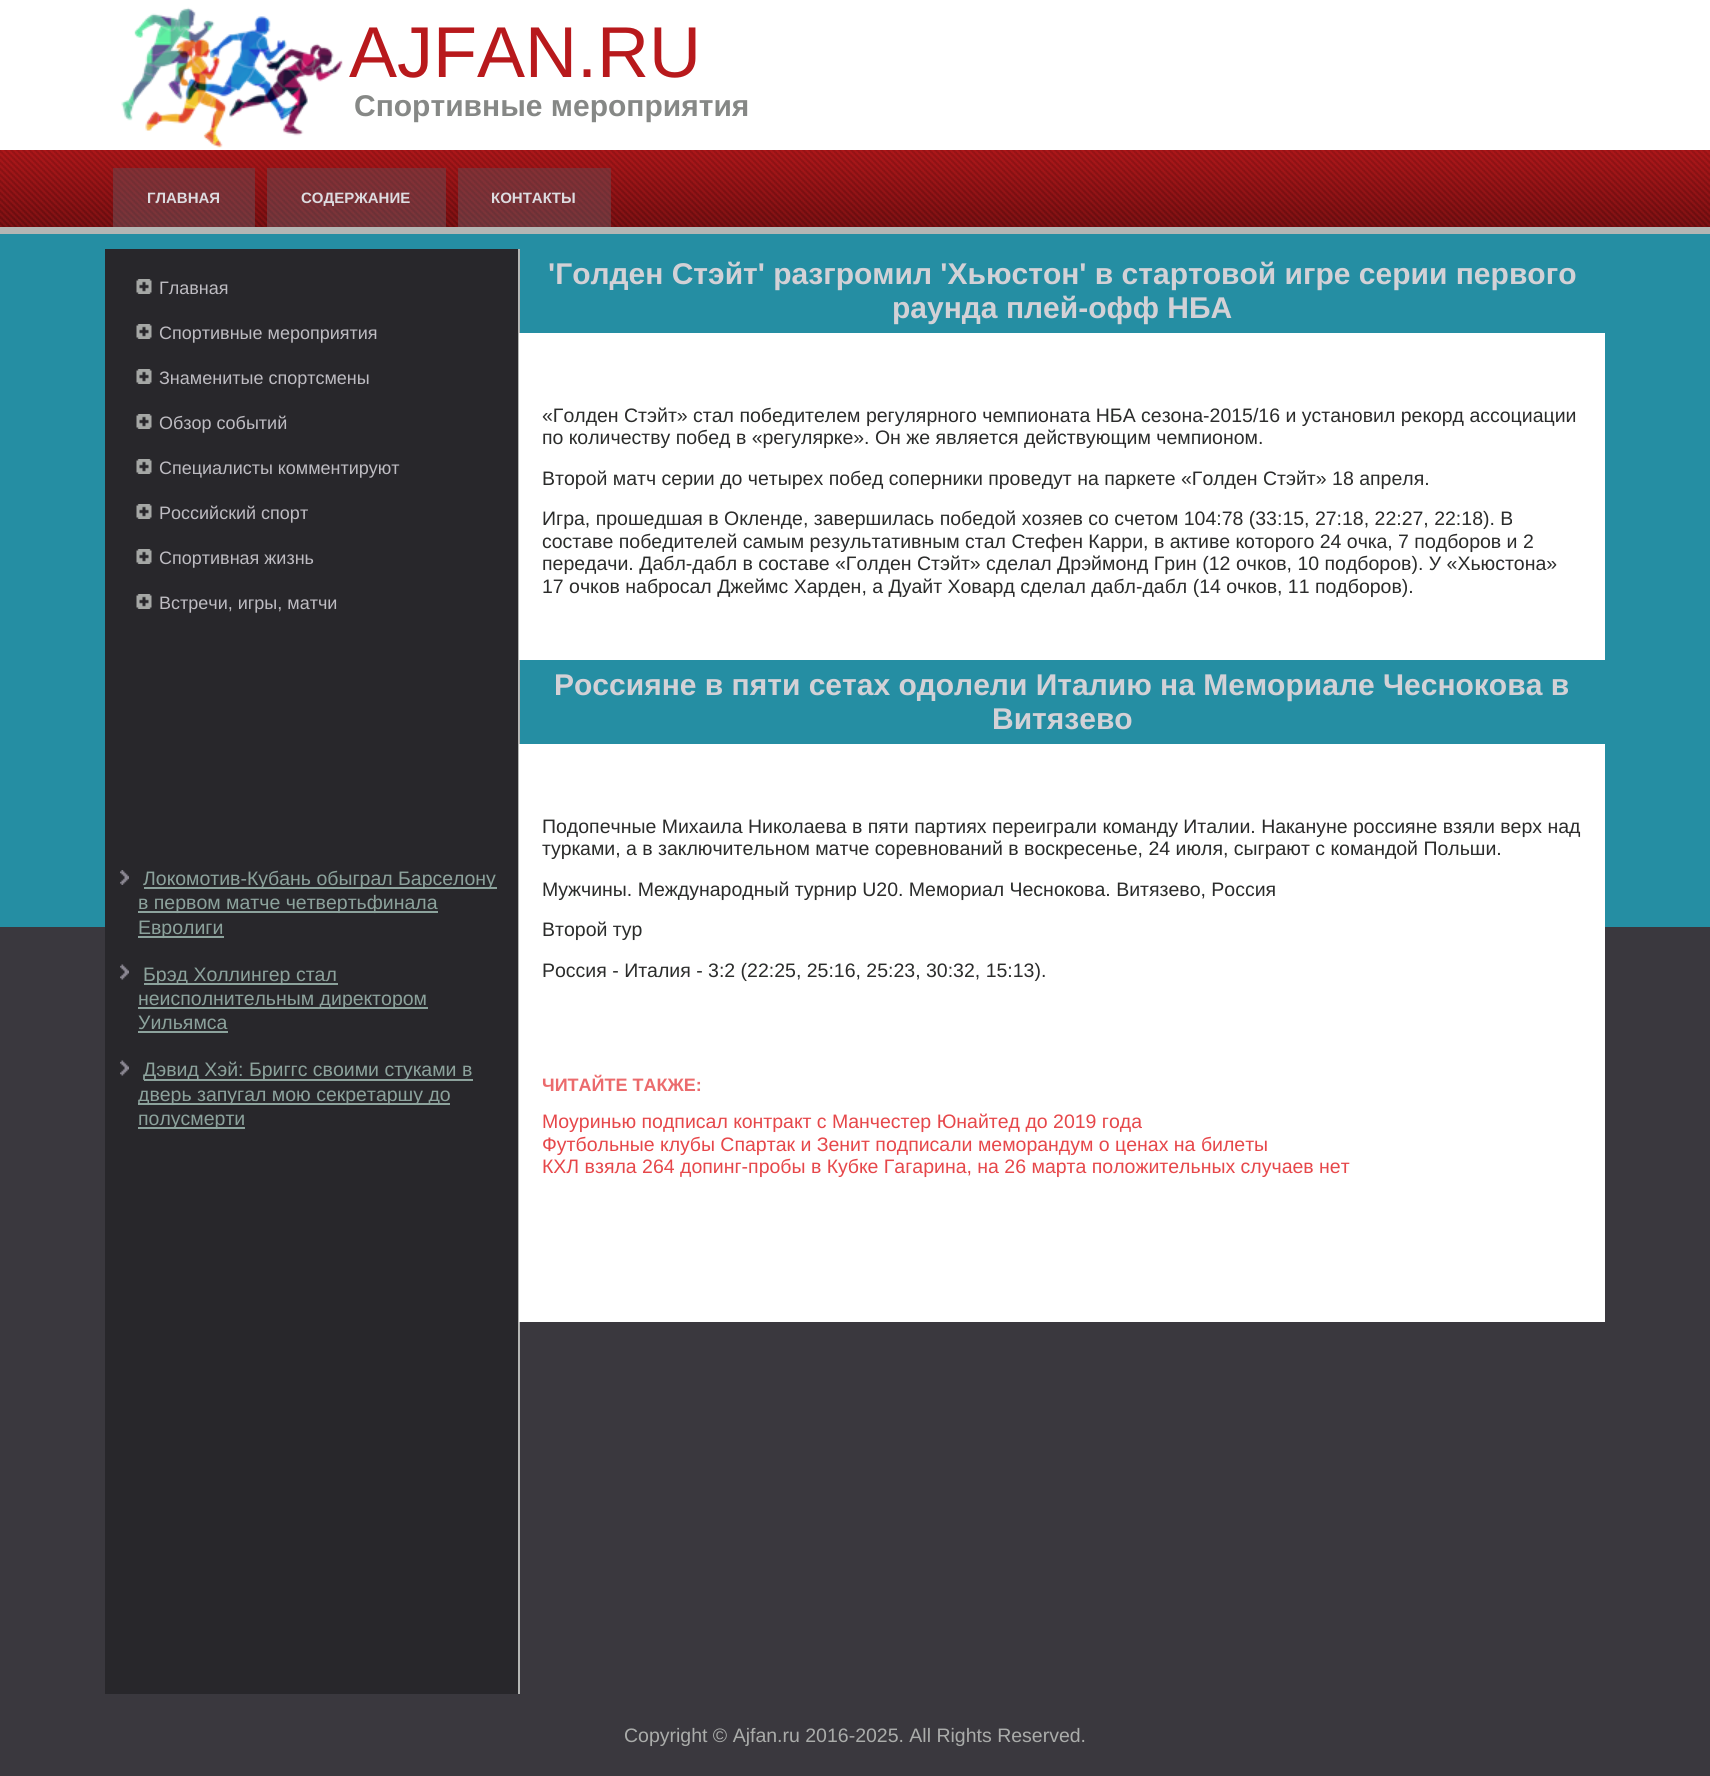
#include <cairo/cairo.h>
#include <math.h>
#include <stddef.h>

static cairo_t *cr;

static void use_color(int r, int g, int b) {
  cairo_set_source_rgb(cr, r / 255.0, g / 255.0, b / 255.0);
}

static void text(double x, double y, const char *s, const char *family, double size, int italic, int bold, int r, int g, int b) {
  cairo_select_font_face(cr, family, italic ? CAIRO_FONT_SLANT_ITALIC : CAIRO_FONT_SLANT_NORMAL,
    bold ? CAIRO_FONT_WEIGHT_BOLD : CAIRO_FONT_WEIGHT_NORMAL);
  cairo_set_font_size(cr, size);
  use_color(r, g, b);
  cairo_move_to(cr, x, y);
  cairo_show_text(cr, s);
}

static void box(double x, double y, double w, double h, int r, int g, int b) {
  use_color(r, g, b);
  cairo_rectangle(cr, x, y, w, h);
  cairo_fill(cr);
}

static void picture(const char *path, double x, double y, double w, double h) {
  cairo_surface_t *image = cairo_image_surface_create_from_png(path);
  cairo_save(cr);
  cairo_set_source_surface(cr, image, x, y);
  cairo_rectangle(cr, x, y, w, h);
  cairo_fill(cr);
  cairo_restore(cr);
  cairo_surface_destroy(image);
}

static void draw(void) {
  use_color(58, 56, 62);
  cairo_paint(cr);
  box(0, 234, 1710, 693, 37, 142, 163);
  box(0, 0, 1710, 150, 255, 255, 255);
  picture("img_01.png", 121, 7, 222, 141);
  picture("img_02.png", 0, 150, 1710, 77);
  box(0, 227, 1710, 7, 180, 182, 180);
  box(105, 249, 413, 1445, 40, 39, 43);
  box(518, 249, 2, 1445, 180, 182, 180);
  picture("img_03.png", 136, 279, 16, 15);
  picture("img_03.png", 136, 324, 16, 15);
  picture("img_03.png", 136, 369, 16, 15);
  picture("img_03.png", 136, 414, 16, 15);
  picture("img_03.png", 136, 459, 16, 15);
  picture("img_03.png", 136, 504, 16, 15);
  picture("img_03.png", 136, 549, 16, 15);
  picture("img_03.png", 136, 594, 16, 15);
  picture("img_04.png", 120, 870, 9, 15);
  box(144, 887, 353, 2, 140, 162, 156);
  box(138, 911, 300, 2, 140, 162, 156);
  box(138, 936, 86, 2, 140, 162, 156);
  picture("img_05.png", 120, 964, 9, 16);
  box(144, 983, 194, 2, 140, 162, 156);
  box(138, 1007, 290, 2, 140, 162, 156);
  box(138, 1031, 90, 2, 140, 162, 156);
  picture("img_05.png", 120, 1060, 9, 16);
  box(144, 1079, 329, 2, 140, 162, 156);
  box(138, 1103, 312, 2, 140, 162, 156);
  box(138, 1127, 107, 2, 140, 162, 156);
  box(519, 333, 1086, 327, 255, 255, 255);
  box(519, 744, 1086, 578, 255, 255, 255);
  text(349, 77, "AJFAN.RU", "Liberation Sans", 72, 0, 0, 184, 25, 28);
  text(354, 116, "Спортивные мероприятия", "Liberation Sans", 30, 0, 1, 134, 136, 134);
  text(147, 203, "ГЛАВНАЯ", "Liberation Sans", 15, 0, 1, 221, 220, 224);
  text(301, 203, "СОДЕРЖАНИЕ", "Liberation Sans", 15, 0, 1, 221, 220, 224);
  text(491, 203, "КОНТАКТЫ", "Liberation Sans", 15, 0, 1, 221, 220, 224);
  text(159, 294, "Главная", "Liberation Sans", 18, 0, 0, 190, 188, 194);
  text(159, 339, "Спортивные мероприятия", "Liberation Sans", 18, 0, 0, 190, 188, 194);
  text(159, 384, "Знаменитые спортсмены", "Liberation Sans", 18, 0, 0, 190, 188, 194);
  text(159, 429, "Обзор событий", "Liberation Sans", 18, 0, 0, 190, 188, 194);
  text(159, 474, "Специалисты комментируют", "Liberation Sans", 18, 0, 0, 190, 188, 194);
  text(159, 519, "Российский спорт", "Liberation Sans", 18, 0, 0, 190, 188, 194);
  text(159, 564, "Спортивная жизнь", "Liberation Sans", 18, 0, 0, 190, 188, 194);
  text(159, 609, "Встречи, игры, матчи", "Liberation Sans", 18, 0, 0, 190, 188, 194);
  text(143, 885, "Локомотив-Кубань обыграл Барселону", "Liberation Sans", 19.5, 0, 0, 140, 162, 156);
  text(138, 909, "в первом матче четвертьфинала", "Liberation Sans", 19.5, 0, 0, 140, 162, 156);
  text(138, 934, "Евролиги", "Liberation Sans", 19.5, 0, 0, 140, 162, 156);
  text(143, 981, "Брэд Холлингер стал", "Liberation Sans", 19.5, 0, 0, 140, 162, 156);
  text(138, 1005, "неисполнительным директором", "Liberation Sans", 19.5, 0, 0, 140, 162, 156);
  text(138, 1029, "Уильямса", "Liberation Sans", 19.5, 0, 0, 140, 162, 156);
  text(143, 1076, "Дэвид Хэй: Бриггс своими стуками в", "Liberation Sans", 19.5, 0, 0, 140, 162, 156);
  text(138, 1101, "дверь запугал мою секретаршу до", "Liberation Sans", 19.5, 0, 0, 140, 162, 156);
  text(138, 1125, "полусмерти", "Liberation Sans", 19.5, 0, 0, 140, 162, 156);
  text(548, 284, "'Голден Стэйт' разгромил 'Хьюстон' в стартовой игре серии первого", "Liberation Sans", 30, 0, 1, 211, 209, 214);
  text(892, 318, "раунда плей-офф НБА", "Liberation Sans", 30, 0, 1, 211, 209, 214);
  text(542, 422, "«Голден Стэйт» стал победителем регулярного чемпионата НБА сезона-2015/16 и установил рекорд ассоциации", "Liberation Sans", 19.5, 0, 0, 43, 44, 43);
  text(542, 444, "по количеству побед в «регулярке». Он же является действующим чемпионом.", "Liberation Sans", 19.5, 0, 0, 43, 44, 43);
  text(542, 485, "Второй матч серии до четырех побед соперники проведут на паркете «Голден Стэйт» 18 апреля.", "Liberation Sans", 19.5, 0, 0, 43, 44, 43);
  text(542, 525, "Игра, прошедшая в Окленде, завершилась победой хозяев со счетом 104:78 (33:15, 27:18, 22:27, 22:18). В", "Liberation Sans", 19.5, 0, 0, 43, 44, 43);
  text(542, 548, "составе победителей самым результативным стал Стефен Карри, в активе которого 24 очка, 7 подборов и 2", "Liberation Sans", 19.5, 0, 0, 43, 44, 43);
  text(542, 570, "передачи. Дабл-дабл в составе «Голден Стэйт» сделал Дрэймонд Грин (12 очков, 10 подборов). У «Хьюстона»", "Liberation Sans", 19.5, 0, 0, 43, 44, 43);
  text(542, 593, "17 очков набросал Джеймс Харден, а Дуайт Ховард сделал дабл-дабл (14 очков, 11 подборов).", "Liberation Sans", 19.5, 0, 0, 43, 44, 43);
  text(554, 695, "Россияне в пяти сетах одолели Италию на Мемориале Чеснокова в", "Liberation Sans", 30, 0, 1, 211, 209, 214);
  text(992, 729, "Витязево", "Liberation Sans", 30, 0, 1, 211, 209, 214);
  text(542, 833, "Подопечные Михаила Николаева в пяти партиях переиграли команду Италии. Накануне россияне взяли верх над", "Liberation Sans", 19.5, 0, 0, 43, 44, 43);
  text(542, 855, "турками, а в заключительном матче соревнований в воскресенье, 24 июля, сыграют с командой Польши.", "Liberation Sans", 19.5, 0, 0, 43, 44, 43);
  text(542, 896, "Мужчины. Международный турнир U20. Мемориал Чеснокова. Витязево, Россия", "Liberation Sans", 19.5, 0, 0, 43, 44, 43);
  text(542, 936, "Второй тур", "Liberation Sans", 19.5, 0, 0, 43, 44, 43);
  text(542, 977, "Россия - Италия - 3:2 (22:25, 25:16, 25:23, 30:32, 15:13).", "Liberation Sans", 19.5, 0, 0, 43, 44, 43);
  text(542, 1091, "ЧИТАЙТЕ ТАКЖЕ:", "Liberation Sans", 18, 0, 1, 235, 107, 109);
  text(542, 1128, "Моуринью подписал контракт с Манчестер Юнайтед до 2019 года", "Liberation Sans", 19.5, 0, 0, 230, 71, 74);
  text(542, 1151, "Футбольные клубы Спартак и Зенит подписали меморандум о ценах на билеты", "Liberation Sans", 19.5, 0, 0, 230, 71, 74);
  text(542, 1173, "КХЛ взяла 264 допинг-пробы в Кубке Гагарина, на 26 марта положительных случаев нет", "Liberation Sans", 19.5, 0, 0, 230, 71, 74);
  text(624, 1742, "Copyright © Ajfan.ru 2016-2025. All Rights Reserved.", "Liberation Sans", 19.5, 0, 0, 170, 172, 170);
}

int main(void) {
  cairo_surface_t *surface = cairo_image_surface_create(CAIRO_FORMAT_RGB24, 1710, 1776);
  cr = cairo_create(surface);
  cairo_font_options_t *options = cairo_font_options_create();
  cairo_font_options_set_hint_metrics(options, CAIRO_HINT_METRICS_OFF);
  cairo_font_options_set_hint_style(options, CAIRO_HINT_STYLE_NONE);
  cairo_set_font_options(cr, options);
  cairo_set_miter_limit(cr, 4);
  draw();
  cairo_surface_write_to_png(surface, "out.png");
  cairo_font_options_destroy(options);
  cairo_destroy(cr);
  cairo_surface_destroy(surface);
  return 0;
}
